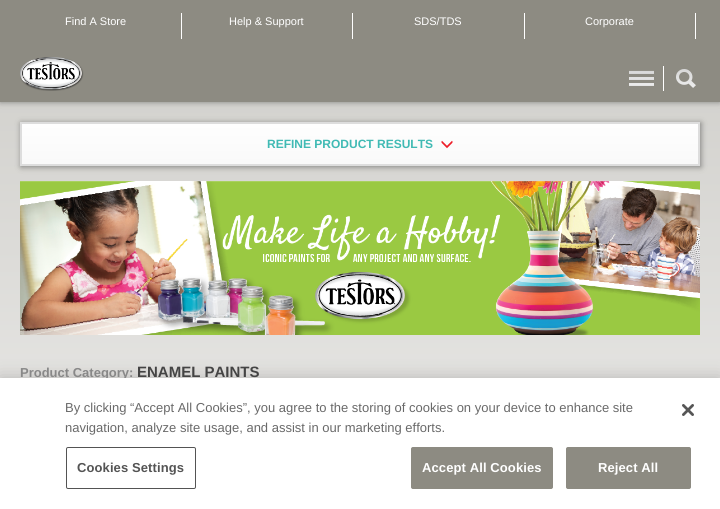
#include <cairo/cairo.h>
#include <math.h>
#include <stddef.h>

static cairo_t *cr;

static void use_color(int r, int g, int b) {
  cairo_set_source_rgb(cr, r / 255.0, g / 255.0, b / 255.0);
}

static void text(double x, double y, const char *s, const char *family, double size, int italic, int bold, int r, int g, int b) {
  cairo_select_font_face(cr, family, italic ? CAIRO_FONT_SLANT_ITALIC : CAIRO_FONT_SLANT_NORMAL,
    bold ? CAIRO_FONT_WEIGHT_BOLD : CAIRO_FONT_WEIGHT_NORMAL);
  cairo_set_font_size(cr, size);
  use_color(r, g, b);
  cairo_move_to(cr, x, y);
  cairo_show_text(cr, s);
}

static void spaced_text(double x, double y, const char *s, double letter, double word) {
  cairo_move_to(cr, x, y);
  while (*s) {
    char ch[5] = {0};
    int n = 0;
    do ch[n++] = *s++; while ((*s & 0xC0) == 0x80);
    cairo_show_text(cr, ch);
    cairo_rel_move_to(cr, letter + word * (*ch == ' '), 0);
  }
}

static void box(double x, double y, double w, double h, int r, int g, int b) {
  use_color(r, g, b);
  cairo_rectangle(cr, x, y, w, h);
  cairo_fill(cr);
}

static void round_rect(double x, double y, double w, double h, double r) {
  cairo_new_sub_path(cr);
  cairo_arc(cr, x + w - r, y + h - r, r, 0, M_PI / 2);
  cairo_arc(cr, x + r, y + h - r, r, M_PI / 2, M_PI);
  cairo_arc(cr, x + r, y + r, r, M_PI, 1.5 * M_PI);
  cairo_arc(cr, x + w - r, y + r, r, 1.5 * M_PI, 2 * M_PI);
  cairo_close_path(cr);
}

static void shadow(double x, double y, double w, double h, double r, double blur, double alpha) {
  cairo_push_group_with_content(cr, CAIRO_CONTENT_ALPHA);
  cairo_set_operator(cr, CAIRO_OPERATOR_SOURCE);
  for (int i = 15; i >= -15 && fmin(w, h) + blur * i / 3 > 0; i -= 2) {
    double e = blur * i / 6;
    cairo_set_source_rgba(cr, 0, 0, 0, alpha * erfc((i - 1) / 8.5) / 2);
    round_rect(x - e, y - e, w + 2 * e, h + 2 * e, fmax(0, fmin(r + e + blur * .6, fmin(w, h) / 2 + e)));
    cairo_fill(cr);
  }
  cairo_pattern_t *soft = cairo_pop_group(cr);
  cairo_mask(cr, soft);
  cairo_pattern_destroy(soft);
}

static void picture(const char *path, double x, double y, double w, double h) {
  cairo_surface_t *image = cairo_image_surface_create_from_png(path);
  cairo_save(cr);
  cairo_set_source_surface(cr, image, x, y);
  cairo_rectangle(cr, x, y, w, h);
  cairo_fill(cr);
  cairo_restore(cr);
  cairo_surface_destroy(image);
}

static void draw(void) {
  cairo_pattern_t *gradient;
  use_color(255, 255, 255);
  cairo_paint(cr);
  gradient = cairo_pattern_create_linear(360, 102, 360, 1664);
  cairo_pattern_add_color_stop_rgba(gradient, 0, 0.831, 0.827, 0.812, 1);
  cairo_pattern_add_color_stop_rgba(gradient, 0.5, 1, 1, 1, 1);
  cairo_set_source(cr, gradient);
  cairo_pattern_destroy(gradient);
  cairo_rectangle(cr, 0, 102, 720, 276);
  cairo_fill(cr);
  use_color(0, 0, 0);
  shadow(0, 0, 720, 102, 0, 3, 0.4);
  box(0, 0, 720, 102, 141, 139, 130);
  box(181, 13, 1, 26, 255, 255, 255);
  box(352, 13, 1, 26, 255, 255, 255);
  box(524, 13, 1, 26, 255, 255, 255);
  box(695, 13, 1, 26, 255, 255, 255);
  picture("img_01.png", 20, 57, 64, 34);
  picture("img_02.png", 629, 70, 25, 16);
  box(663, 66, 1, 25, 255, 255, 255);
  picture("img_03.png", 676, 69, 20, 19);
  use_color(0, 0, 0);
  shadow(21, 123, 680, 44, 0, 3, 0.4);
  gradient = cairo_pattern_create_linear(360, 124, 360, 164);
  cairo_pattern_add_color_stop_rgba(gradient, 0.01, 0.996, 0.996, 0.996, 1);
  cairo_pattern_add_color_stop_rgba(gradient, 1, 0.976, 0.976, 0.976, 1);
  cairo_set_source(cr, gradient);
  cairo_pattern_destroy(gradient);
  cairo_rectangle(cr, 22, 124, 676, 40);
  cairo_fill(cr);
  cairo_rectangle(cr, 21, 123, 678, 42);
  use_color(221, 221, 221);
  cairo_stroke(cr);
  picture("img_04.png", 441, 140, 12, 9);
  picture("img_05.png", 20, 181, 680, 154);
  use_color(0, 0, 0);
  shadow(0, 378, 720, 131, 0, 9, 0.2);
  text(65, 25, "Find A Store", "Liberation Sans", 11, 0, 0, 255, 255, 255);
  text(229, 25, "Help & Support", "Liberation Sans", 11, 0, 0, 255, 255, 255);
  text(414, 25, "SDS/TDS", "Liberation Sans", 11, 0, 0, 255, 255, 255);
  text(585, 25, "Corporate", "Liberation Sans", 11, 0, 0, 255, 255, 255);
  text(267, 148, "REFINE PRODUCT RESULTS", "Liberation Sans", 12, 0, 1, 64, 186, 180);
  text(20, 377, "Product Category:", "Liberation Sans", 13, 0, 1, 136, 136, 136);
  text(137, 377, "ENAMEL PAINTS", "Liberation Sans", 15, 0, 1, 68, 68, 68);
  box(0, 378, 720, 131, 255, 255, 255);
  text(65, 412, "By clicking “Accept All Cookies”, you agree to the storing of cookies on your device to enhance site", "Liberation Sans", 13, 0, 0, 105, 105, 105);
  text(65, 432, "navigation, analyze site usage, and assist in our marketing efforts.", "Liberation Sans", 13, 0, 0, 105, 105, 105);
  round_rect(66.5, 447.5, 129, 41, 1.5);
  use_color(84, 84, 84);
  cairo_set_line_width(cr, 1);
  cairo_stroke(cr);
  cairo_select_font_face(cr, "Liberation Sans", CAIRO_FONT_SLANT_NORMAL, CAIRO_FONT_WEIGHT_BOLD);
  spaced_text(77, 472, "Cookies Settings", 0.1, 0);
  use_color(141, 139, 130);
  round_rect(411.5, 447.5, 141, 41, 1.5);
  cairo_fill_preserve(cr);
  cairo_stroke(cr);
  use_color(255, 255, 255);
  spaced_text(422, 472, "Accept All Cookies", 0.1, 0);
  use_color(141, 139, 130);
  round_rect(566.5, 447.5, 124, 41, 1.5);
  cairo_fill_preserve(cr);
  cairo_stroke(cr);
  use_color(255, 255, 255);
  spaced_text(598, 472, "Reject All", 0.1, 0);
  picture("img_06.png", 682, 404, 12, 12);
}

int main(void) {
  cairo_surface_t *surface = cairo_image_surface_create(CAIRO_FORMAT_RGB24, 720, 509);
  cr = cairo_create(surface);
  cairo_font_options_t *options = cairo_font_options_create();
  cairo_font_options_set_hint_metrics(options, CAIRO_HINT_METRICS_OFF);
  cairo_font_options_set_hint_style(options, CAIRO_HINT_STYLE_NONE);
  cairo_set_font_options(cr, options);
  cairo_set_miter_limit(cr, 4);
  draw();
  cairo_surface_write_to_png(surface, "out.png");
  cairo_font_options_destroy(options);
  cairo_destroy(cr);
  cairo_surface_destroy(surface);
  return 0;
}
